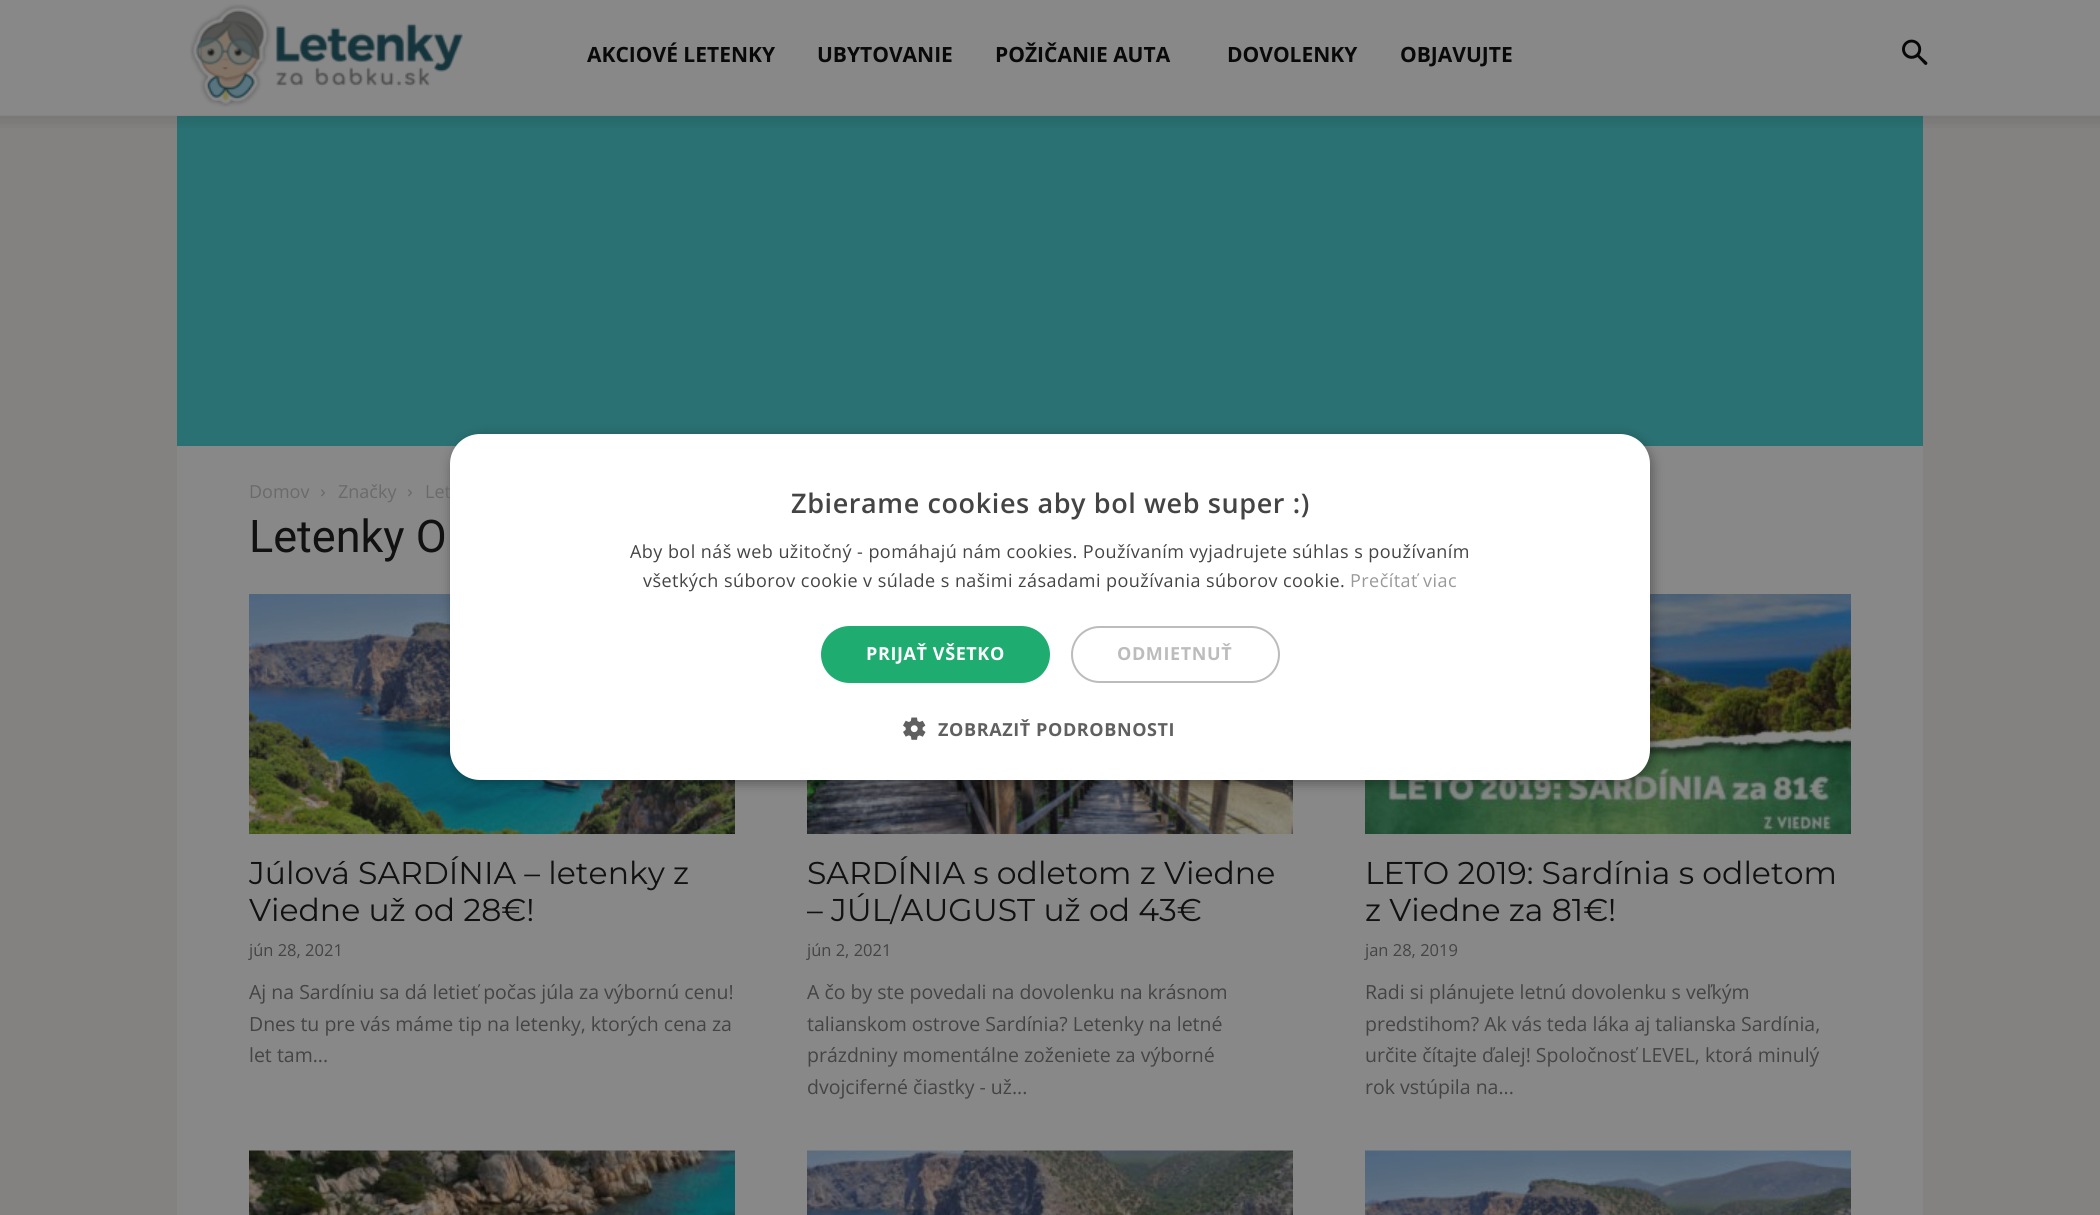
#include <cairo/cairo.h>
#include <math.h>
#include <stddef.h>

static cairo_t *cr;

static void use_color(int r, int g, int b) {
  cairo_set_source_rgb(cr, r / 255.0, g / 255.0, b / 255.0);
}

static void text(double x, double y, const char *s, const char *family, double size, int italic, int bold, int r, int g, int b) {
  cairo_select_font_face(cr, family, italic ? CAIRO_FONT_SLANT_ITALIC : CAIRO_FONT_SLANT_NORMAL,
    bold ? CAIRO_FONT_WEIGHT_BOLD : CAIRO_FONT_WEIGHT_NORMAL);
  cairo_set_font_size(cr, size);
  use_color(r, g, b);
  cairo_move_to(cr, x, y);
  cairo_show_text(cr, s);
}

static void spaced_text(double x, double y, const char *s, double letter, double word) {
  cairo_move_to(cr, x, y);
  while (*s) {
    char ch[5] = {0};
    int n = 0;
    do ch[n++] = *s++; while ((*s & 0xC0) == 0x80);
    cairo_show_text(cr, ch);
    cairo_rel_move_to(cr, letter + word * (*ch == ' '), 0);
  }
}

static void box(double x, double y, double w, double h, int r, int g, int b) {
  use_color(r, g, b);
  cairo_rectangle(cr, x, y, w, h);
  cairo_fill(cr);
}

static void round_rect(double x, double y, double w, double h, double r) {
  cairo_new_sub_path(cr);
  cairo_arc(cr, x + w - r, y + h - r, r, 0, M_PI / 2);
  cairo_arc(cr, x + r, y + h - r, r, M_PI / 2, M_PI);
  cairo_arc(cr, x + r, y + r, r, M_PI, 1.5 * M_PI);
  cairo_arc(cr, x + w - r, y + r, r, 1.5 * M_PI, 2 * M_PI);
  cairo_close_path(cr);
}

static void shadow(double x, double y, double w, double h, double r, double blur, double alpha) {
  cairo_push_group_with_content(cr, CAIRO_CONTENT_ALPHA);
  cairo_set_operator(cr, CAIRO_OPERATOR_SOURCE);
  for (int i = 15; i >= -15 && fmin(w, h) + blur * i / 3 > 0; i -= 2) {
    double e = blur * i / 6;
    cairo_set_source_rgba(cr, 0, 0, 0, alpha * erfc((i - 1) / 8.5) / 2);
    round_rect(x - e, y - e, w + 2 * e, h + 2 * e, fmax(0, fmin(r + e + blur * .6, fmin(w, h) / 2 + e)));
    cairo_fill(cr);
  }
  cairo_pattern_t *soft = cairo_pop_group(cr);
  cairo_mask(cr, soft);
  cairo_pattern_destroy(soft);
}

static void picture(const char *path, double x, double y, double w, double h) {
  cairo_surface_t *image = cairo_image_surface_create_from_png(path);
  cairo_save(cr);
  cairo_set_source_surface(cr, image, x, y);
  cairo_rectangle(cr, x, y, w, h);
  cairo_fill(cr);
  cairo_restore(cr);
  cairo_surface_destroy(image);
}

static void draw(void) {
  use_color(132, 130, 128);
  cairo_paint(cr);
  box(0, 0, 2100, 116, 136, 136, 136);
  picture("img_01.png", 190, 4, 273, 103);
  picture("img_02.png", 1902, 39, 26, 26);
  box(177, 116, 1746, 330, 42, 113, 115);
  picture("img_03.png", 0, 115, 2100, 13);
  box(177, 446, 1746, 769, 136, 136, 136);
  picture("img_04.png", 321, 489, 4, 8);
  picture("img_04.png", 408, 489, 4, 8);
  picture("img_05.png", 249, 594, 486, 240);
  picture("img_06.png", 807, 780, 486, 54);
  picture("img_07.png", 1365, 594, 486, 240);
  picture("img_08.png", 249, 1150, 486, 65);
  picture("img_09.png", 807, 1150, 486, 65);
  picture("img_10.png", 1365, 1150, 486, 65);
  use_color(0, 0, 0);
  shadow(452, 437, 1200, 346, 30, 6, 0.35);
  text(587, 62, "AKCIOVÉ LETENKY", "Open Sans", 21, 0, 1, 9, 9, 9);
  text(817, 62, "UBYTOVANIE", "Open Sans", 21, 0, 1, 9, 9, 9);
  text(995, 62, "POŽIČANIE AUTA", "Open Sans", 21, 0, 1, 9, 9, 9);
  text(1227, 62, "DOVOLENKY", "Open Sans", 21, 0, 1, 9, 9, 9);
  text(1400, 62, "OBJAVUJTE", "Open Sans", 21, 0, 1, 9, 9, 9);
  text(249, 498, "Domov", "Open Sans", 18, 0, 0, 106, 106, 106);
  text(338, 498, "Značky", "Open Sans", 18, 0, 0, 106, 106, 106);
  text(425, 498, "Let", "Open Sans", 18, 0, 0, 106, 106, 106);
  text(249, 552, "Letenky O", "Roboto", 45, 0, 0, 17, 17, 17);
  text(249, 884, "Júlová SARDÍNIA – letenky z", "Montserrat Thin", 31.5, 0, 0, 17, 17, 17);
  text(249, 921, "Viedne už od 28€!", "Montserrat Thin", 31.5, 0, 0, 17, 17, 17);
  text(249, 956, "jún 28, 2021", "Open Sans", 16.5, 0, 0, 68, 68, 68);
  text(249, 999, "Aj na Sardíniu sa dá letieť počas júla za výbornú cenu!", "Open Sans", 19.5, 0, 0, 68, 68, 68);
  text(249, 1031, "Dnes tu pre vás máme tip na letenky, ktorých cena za", "Open Sans", 19.5, 0, 0, 68, 68, 68);
  text(249, 1062, "let tam...", "Open Sans", 19.5, 0, 0, 68, 68, 68);
  text(807, 884, "SARDÍNIA s odletom z Viedne", "Montserrat Thin", 31.5, 0, 0, 17, 17, 17);
  text(807, 921, "– JÚL/AUGUST už od 43€", "Montserrat Thin", 31.5, 0, 0, 17, 17, 17);
  text(807, 956, "jún 2, 2021", "Open Sans", 16.5, 0, 0, 68, 68, 68);
  text(807, 999, "A čo by ste povedali na dovolenku na krásnom", "Open Sans", 19.5, 0, 0, 68, 68, 68);
  text(807, 1031, "talianskom ostrove Sardínia? Letenky na letné", "Open Sans", 19.5, 0, 0, 68, 68, 68);
  text(807, 1062, "prázdniny momentálne zoženiete za výborné", "Open Sans", 19.5, 0, 0, 68, 68, 68);
  text(807, 1094, "dvojciferné čiastky - už...", "Open Sans", 19.5, 0, 0, 68, 68, 68);
  text(1365, 884, "LETO 2019: Sardínia s odletom", "Montserrat Thin", 31.5, 0, 0, 17, 17, 17);
  text(1365, 921, "z Viedne za 81€!", "Montserrat Thin", 31.5, 0, 0, 17, 17, 17);
  text(1365, 956, "jan 28, 2019", "Open Sans", 16.5, 0, 0, 68, 68, 68);
  text(1365, 999, "Radi si plánujete letnú dovolenku s veľkým", "Open Sans", 19.5, 0, 0, 68, 68, 68);
  text(1365, 1031, "predstihom? Ak vás teda láka aj talianska Sardínia,", "Open Sans", 19.5, 0, 0, 68, 68, 68);
  text(1365, 1062, "určite čítajte ďalej! Spoločnosť LEVEL, ktorá minulý", "Open Sans", 19.5, 0, 0, 68, 68, 68);
  text(1365, 1094, "rok vstúpila na...", "Open Sans", 19.5, 0, 0, 68, 68, 68);
  use_color(255, 255, 255);
  round_rect(450, 434, 1200, 346, 30);
  cairo_fill(cr);
  cairo_select_font_face(cr, "Open Sans SemiBold", CAIRO_FONT_SLANT_NORMAL, CAIRO_FONT_WEIGHT_NORMAL);
  cairo_set_font_size(cr, 27);
  use_color(68, 68, 68);
  spaced_text(791, 513, "Zbierame cookies aby bol web super :)", 0.6, 0);
  cairo_select_font_face(cr, "Open Sans", CAIRO_FONT_SLANT_NORMAL, CAIRO_FONT_WEIGHT_NORMAL);
  cairo_set_font_size(cr, 18);
  spaced_text(630, 558, "Aby bol náš web užitočný - pomáhajú nám cookies. Používaním vyjadrujete súhlas s používaním", 0.45, 0);
  spaced_text(643, 587, "všetkých súborov cookie v súlade s našimi zásadami používania súborov cookie.", 0.45, 0);
  use_color(153, 153, 153);
  spaced_text(1350, 587, "Prečítať viac", 0.45, 0);
  use_color(31, 172, 112);
  round_rect(821, 626, 229, 57, 28.5);
  cairo_fill(cr);
  cairo_select_font_face(cr, "Open Sans", CAIRO_FONT_SLANT_NORMAL, CAIRO_FONT_WEIGHT_BOLD);
  use_color(255, 255, 255);
  spaced_text(866, 660, "PRIJAŤ VŠETKO", 0.6, 0);
  round_rect(1072, 627, 207, 55, 27.5);
  use_color(188, 188, 188);
  cairo_stroke(cr);
  spaced_text(1117, 660, "ODMIETNUŤ", 0.6, 0);
  picture("img_11.png", 903, 717, 23, 23);
  use_color(96, 96, 96);
  spaced_text(938, 736, "ZOBRAZIŤ PODROBNOSTI", 0.6, 0);
}

int main(void) {
  cairo_surface_t *surface = cairo_image_surface_create(CAIRO_FORMAT_RGB24, 2100, 1215);
  cr = cairo_create(surface);
  cairo_font_options_t *options = cairo_font_options_create();
  cairo_font_options_set_hint_metrics(options, CAIRO_HINT_METRICS_OFF);
  cairo_font_options_set_hint_style(options, CAIRO_HINT_STYLE_NONE);
  cairo_set_font_options(cr, options);
  cairo_set_miter_limit(cr, 4);
  draw();
  cairo_surface_write_to_png(surface, "out.png");
  cairo_font_options_destroy(options);
  cairo_destroy(cr);
  cairo_surface_destroy(surface);
  return 0;
}
